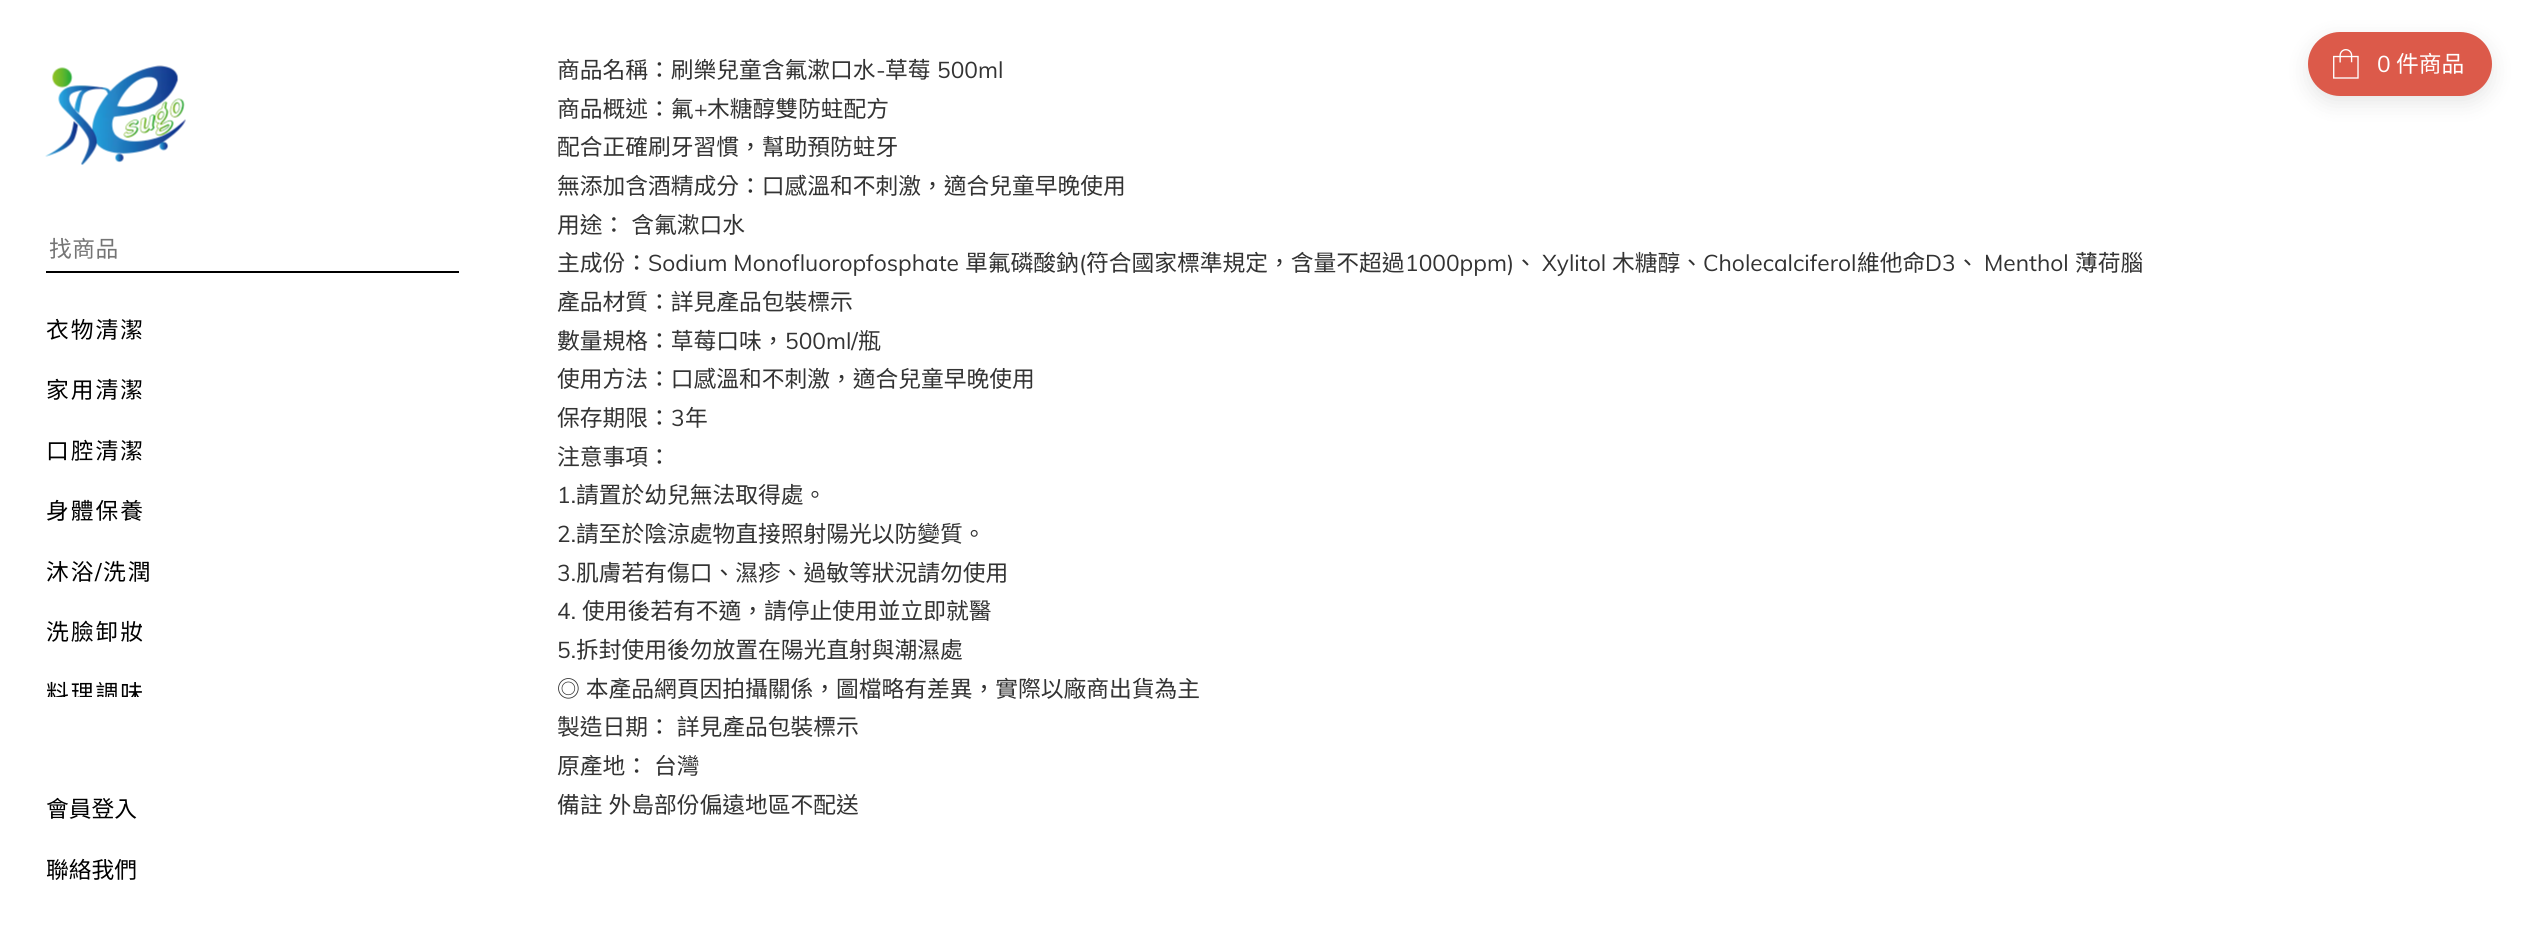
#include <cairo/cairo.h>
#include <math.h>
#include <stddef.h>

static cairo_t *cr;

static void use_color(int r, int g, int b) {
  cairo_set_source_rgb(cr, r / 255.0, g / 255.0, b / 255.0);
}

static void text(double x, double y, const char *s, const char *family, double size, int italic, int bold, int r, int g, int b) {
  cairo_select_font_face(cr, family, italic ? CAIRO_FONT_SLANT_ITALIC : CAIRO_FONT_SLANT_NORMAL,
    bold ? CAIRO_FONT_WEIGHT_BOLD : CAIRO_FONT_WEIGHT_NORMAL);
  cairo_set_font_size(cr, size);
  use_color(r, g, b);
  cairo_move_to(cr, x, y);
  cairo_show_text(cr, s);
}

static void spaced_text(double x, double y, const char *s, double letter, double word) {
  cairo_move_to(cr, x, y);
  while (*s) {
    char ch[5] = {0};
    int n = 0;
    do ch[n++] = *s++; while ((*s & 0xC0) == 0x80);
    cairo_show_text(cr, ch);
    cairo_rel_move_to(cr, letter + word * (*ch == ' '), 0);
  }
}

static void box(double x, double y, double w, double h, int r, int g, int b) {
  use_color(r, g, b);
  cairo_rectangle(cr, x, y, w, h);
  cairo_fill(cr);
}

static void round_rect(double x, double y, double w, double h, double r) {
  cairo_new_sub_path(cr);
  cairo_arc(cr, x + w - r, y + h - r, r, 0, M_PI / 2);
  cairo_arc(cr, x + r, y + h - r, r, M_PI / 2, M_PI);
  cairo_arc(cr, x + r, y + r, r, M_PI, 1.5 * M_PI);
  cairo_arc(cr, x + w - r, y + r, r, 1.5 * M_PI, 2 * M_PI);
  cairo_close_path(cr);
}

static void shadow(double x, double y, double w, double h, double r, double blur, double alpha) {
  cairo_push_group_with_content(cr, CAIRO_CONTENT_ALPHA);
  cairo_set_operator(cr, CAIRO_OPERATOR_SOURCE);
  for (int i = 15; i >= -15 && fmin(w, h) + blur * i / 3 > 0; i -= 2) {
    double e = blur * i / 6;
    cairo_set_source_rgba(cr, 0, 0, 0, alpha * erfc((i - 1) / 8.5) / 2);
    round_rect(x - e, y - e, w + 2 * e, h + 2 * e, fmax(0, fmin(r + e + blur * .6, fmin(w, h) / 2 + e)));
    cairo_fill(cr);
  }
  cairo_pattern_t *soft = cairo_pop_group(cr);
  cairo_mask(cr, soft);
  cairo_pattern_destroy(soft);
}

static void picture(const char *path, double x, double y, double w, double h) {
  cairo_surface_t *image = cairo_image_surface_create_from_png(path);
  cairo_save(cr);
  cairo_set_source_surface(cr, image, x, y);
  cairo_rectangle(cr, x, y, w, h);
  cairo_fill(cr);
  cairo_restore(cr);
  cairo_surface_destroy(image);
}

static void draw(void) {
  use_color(255, 255, 255);
  cairo_paint(cr);
  picture("img_01.png", 45, 65, 141, 100);
  box(46, 271, 413, 2, 0, 0, 0);
  use_color(0, 0, 0);
  shadow(2308, 39, 184, 64, 32, 10.5, 0.1);
  use_color(220, 90, 74);
  round_rect(2308, 32, 184, 64, 32);
  cairo_fill(cr);
  picture("img_02.png", 2333, 49, 26, 30);
  cairo_select_font_face(cr, "Noto Sans TC", CAIRO_FONT_SLANT_NORMAL, CAIRO_FONT_WEIGHT_NORMAL);
  cairo_set_font_size(cr, 22.75);
  use_color(117, 117, 117);
  spaced_text(49, 257, "找商品", 0.5, 0);
  use_color(0, 0, 0);
  spaced_text(46, 338, "衣物清潔", 2, 0);
  spaced_text(46, 398, "家用清潔", 2, 0);
  spaced_text(46, 459, "口腔清潔", 2, 0);
  spaced_text(46, 519, "身體保養", 2, 0);
  spaced_text(46, 580, "沐浴", 2, 0);
  cairo_select_font_face(cr, "Muli", CAIRO_FONT_SLANT_NORMAL, CAIRO_FONT_WEIGHT_NORMAL);
  spaced_text(95, 580, "/", 2, 0);
  cairo_select_font_face(cr, "Noto Sans TC", CAIRO_FONT_SLANT_NORMAL, CAIRO_FONT_WEIGHT_NORMAL);
  spaced_text(103, 580, "洗潤", 2, 0);
  spaced_text(46, 640, "洗臉卸妝", 2, 0);
  cairo_save(cr);
  cairo_rectangle(cr, 0, 299, 504, 398);
  cairo_clip(cr);
  spaced_text(46, 701, "料理調味", 2, 0);
  cairo_restore(cr);
  text(46, 817, "會員登入", "Noto Sans TC", 22.75, 0, 0, 0, 0, 0);
  text(46, 878, "聯絡我們", "Noto Sans TC", 22.75, 0, 0, 0, 0, 0);
  text(557, 78, "商品名稱：刷樂兒童含氟漱口水", "Noto Sans TC", 22.75, 0, 0, 51, 51, 51);
  text(876, 78, "-", "Muli", 22.75, 0, 0, 51, 51, 51);
  text(885, 78, "草莓", "Noto Sans TC", 22.75, 0, 0, 51, 51, 51);
  text(937, 78, "500ml", "Muli", 22.75, 0, 0, 51, 51, 51);
  text(557, 117, "商品概述：氟", "Noto Sans TC", 22.75, 0, 0, 51, 51, 51);
  text(694, 117, "+", "Muli", 22.75, 0, 0, 51, 51, 51);
  text(707, 117, "木糖醇雙防蛀配方", "Noto Sans TC", 22.75, 0, 0, 51, 51, 51);
  text(557, 155, "配合正確刷牙習慣，幫助預防蛀牙", "Noto Sans TC", 22.75, 0, 0, 51, 51, 51);
  text(557, 194, "無添加含酒精成分：口感溫和不刺激，適合兒童早晚使用", "Noto Sans TC", 22.75, 0, 0, 51, 51, 51);
  spaced_text(557, 233, "用途： 含氟漱口水", 0, 1);
  text(557, 271, "主成份：", "Noto Sans TC", 22.75, 0, 0, 51, 51, 51);
  text(648, 271, "Sodium Monofluoropfosphate", "Muli", 22.75, 0, 0, 51, 51, 51);
  text(965, 271, "單氟磷酸鈉", "Noto Sans TC", 22.75, 0, 0, 51, 51, 51);
  text(1079, 271, "(", "Muli", 22.75, 0, 0, 51, 51, 51);
  text(1086, 271, "符合國家標準規定，含量不超過", "Noto Sans TC", 22.75, 0, 0, 51, 51, 51);
  text(1405, 271, "1000ppm)", "Muli", 22.75, 0, 0, 51, 51, 51);
  text(1514, 271, "、", "Noto Sans TC", 22.75, 0, 0, 51, 51, 51);
  text(1542, 271, "Xylitol", "Muli", 22.75, 0, 0, 51, 51, 51);
  text(1612, 271, "木糖醇、", "Noto Sans TC", 22.75, 0, 0, 51, 51, 51);
  text(1703, 271, "Cholecalciferol", "Muli", 22.75, 0, 0, 51, 51, 51);
  text(1857, 271, "維他命", "Noto Sans TC", 22.75, 0, 0, 51, 51, 51);
  text(1925, 271, "D3", "Muli", 22.75, 0, 0, 51, 51, 51);
  text(1956, 271, "、", "Noto Sans TC", 22.75, 0, 0, 51, 51, 51);
  text(1984, 271, "Menthol", "Muli", 22.75, 0, 0, 51, 51, 51);
  text(2075, 271, "薄荷腦", "Noto Sans TC", 22.75, 0, 0, 51, 51, 51);
  text(557, 310, "產品材質：詳見產品包裝標示", "Noto Sans TC", 22.75, 0, 0, 51, 51, 51);
  text(557, 349, "數量規格：草莓口味，", "Noto Sans TC", 22.75, 0, 0, 51, 51, 51);
  text(785, 349, "500ml/", "Muli", 22.75, 0, 0, 51, 51, 51);
  text(858, 349, "瓶", "Noto Sans TC", 22.75, 0, 0, 51, 51, 51);
  text(557, 387, "使用方法：口感溫和不刺激，適合兒童早晚使用", "Noto Sans TC", 22.75, 0, 0, 51, 51, 51);
  text(557, 426, "保存期限：", "Noto Sans TC", 22.75, 0, 0, 51, 51, 51);
  text(671, 426, "3", "Muli", 22.75, 0, 0, 51, 51, 51);
  text(685, 426, "年", "Noto Sans TC", 22.75, 0, 0, 51, 51, 51);
  text(557, 465, "注意事項：", "Noto Sans TC", 22.75, 0, 0, 51, 51, 51);
  text(557, 503, "1.", "Muli", 22.75, 0, 0, 51, 51, 51);
  text(576, 503, "請置於幼兒無法取得處。", "Noto Sans TC", 22.75, 0, 0, 51, 51, 51);
  text(557, 542, "2.", "Muli", 22.75, 0, 0, 51, 51, 51);
  text(576, 542, "請至於陰涼處物直接照射陽光以防變質。", "Noto Sans TC", 22.75, 0, 0, 51, 51, 51);
  text(557, 581, "3.", "Muli", 22.75, 0, 0, 51, 51, 51);
  text(576, 581, "肌膚若有傷口、濕疹、過敏等狀況請勿使用", "Noto Sans TC", 22.75, 0, 0, 51, 51, 51);
  text(557, 619, "4.", "Muli", 22.75, 0, 0, 51, 51, 51);
  text(582, 619, "使用後若有不適，請停止使用並立即就醫", "Noto Sans TC", 22.75, 0, 0, 51, 51, 51);
  text(557, 658, "5.", "Muli", 22.75, 0, 0, 51, 51, 51);
  text(576, 658, "拆封使用後勿放置在陽光直射與潮濕處", "Noto Sans TC", 22.75, 0, 0, 51, 51, 51);
  spaced_text(557, 697, "◎ 本產品網頁因拍攝關係，圖檔略有差異，實際以廠商出貨為主", 0, 1);
  spaced_text(557, 735, "製造日期： 詳見產品包裝標示", 0, 1);
  spaced_text(557, 774, "原產地： 台灣", 0, 1);
  spaced_text(557, 813, "備註 外島部份偏遠地區不配送", 0, 1);
  text(2377, 72, "0", "Muli", 22.75, 0, 0, 255, 255, 255);
  text(2396, 72, "件商品", "Noto Sans TC", 22.75, 0, 0, 255, 255, 255);
}

int main(void) {
  cairo_surface_t *surface = cairo_image_surface_create(CAIRO_FORMAT_RGB24, 2522, 930);
  cr = cairo_create(surface);
  cairo_font_options_t *options = cairo_font_options_create();
  cairo_font_options_set_hint_metrics(options, CAIRO_HINT_METRICS_OFF);
  cairo_font_options_set_hint_style(options, CAIRO_HINT_STYLE_NONE);
  cairo_set_font_options(cr, options);
  cairo_set_miter_limit(cr, 4);
  draw();
  cairo_surface_write_to_png(surface, "out.png");
  cairo_font_options_destroy(options);
  cairo_destroy(cr);
  cairo_surface_destroy(surface);
  return 0;
}
